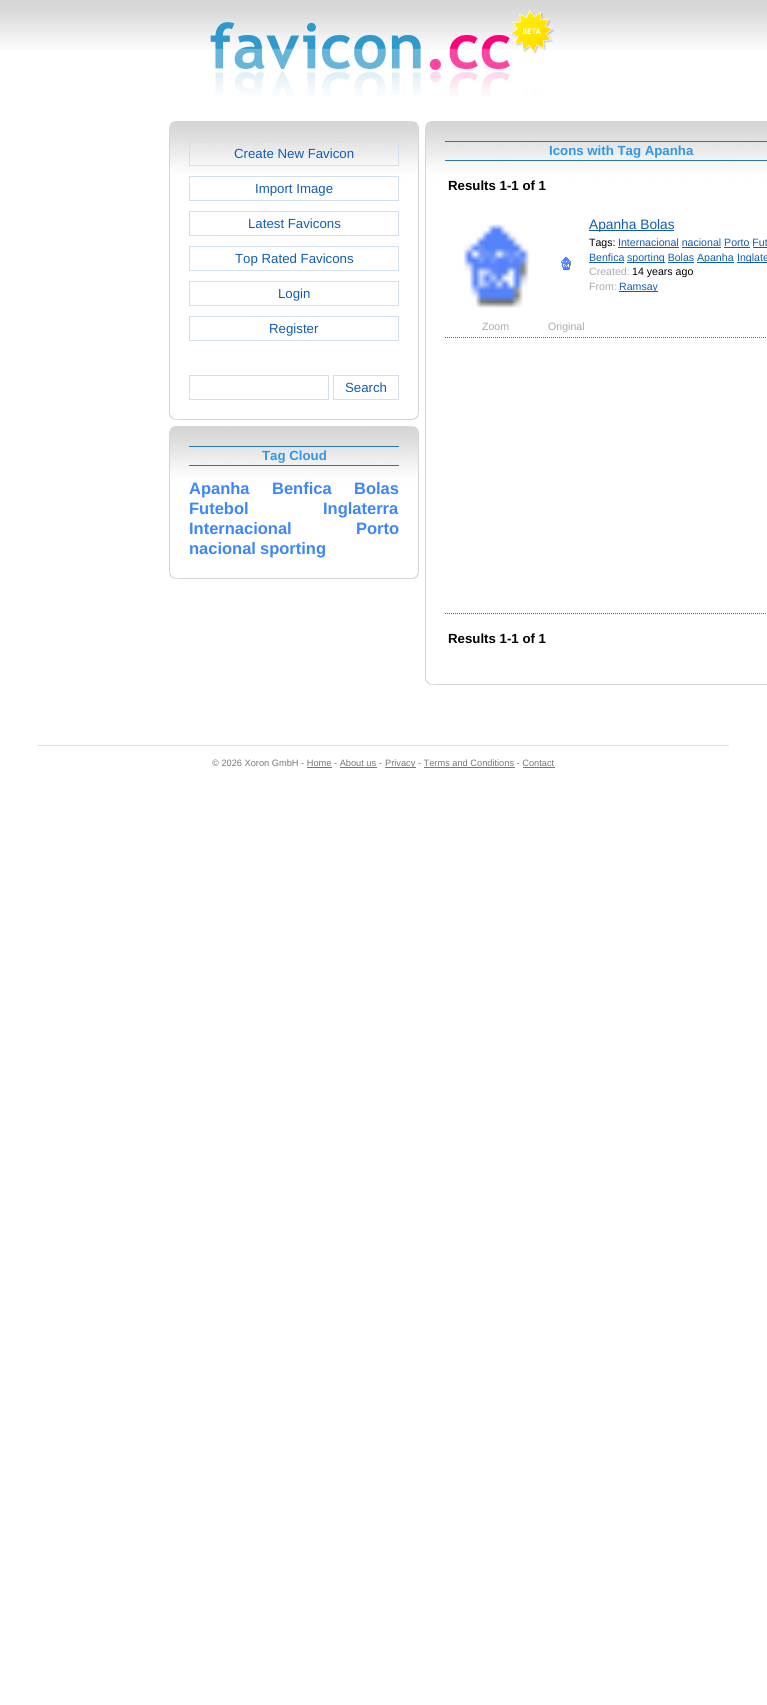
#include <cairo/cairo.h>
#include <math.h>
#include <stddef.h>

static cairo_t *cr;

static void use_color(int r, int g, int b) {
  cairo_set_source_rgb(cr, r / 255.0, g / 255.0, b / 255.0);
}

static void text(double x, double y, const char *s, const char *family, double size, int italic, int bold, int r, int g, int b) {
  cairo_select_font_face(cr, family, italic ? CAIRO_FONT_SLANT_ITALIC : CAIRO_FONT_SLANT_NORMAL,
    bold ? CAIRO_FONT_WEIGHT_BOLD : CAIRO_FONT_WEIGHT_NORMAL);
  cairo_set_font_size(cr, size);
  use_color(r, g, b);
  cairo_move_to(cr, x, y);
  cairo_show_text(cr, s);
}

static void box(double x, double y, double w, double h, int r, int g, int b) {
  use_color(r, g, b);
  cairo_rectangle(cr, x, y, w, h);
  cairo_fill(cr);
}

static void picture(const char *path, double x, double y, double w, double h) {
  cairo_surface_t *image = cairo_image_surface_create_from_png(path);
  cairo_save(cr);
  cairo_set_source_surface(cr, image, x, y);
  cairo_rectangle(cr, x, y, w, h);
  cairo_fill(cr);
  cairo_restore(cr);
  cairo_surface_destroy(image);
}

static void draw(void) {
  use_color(255, 255, 255);
  cairo_paint(cr);
  picture("img_01.png", 0, 0, 767, 50);
  picture("img_02.png", 210, 10, 345, 101);
  picture("img_03.png", 170, 121, 248, 298);
  box(179, 419, 240, 1, 210, 214, 214);
  box(169, 125, 1, 294, 210, 214, 214);
  box(418, 125, 1, 294, 210, 214, 214);
  picture("img_04.png", 413, 412, 6, 8);
  picture("img_05.png", 169, 121, 7, 8);
  picture("img_06.png", 409, 121, 10, 6);
  picture("img_07.png", 169, 414, 10, 6);
  cairo_rectangle(cr, 189.5, 141.5, 209, 24);
  use_color(211, 223, 237);
  cairo_set_line_width(cr, 1);
  cairo_stroke(cr);
  cairo_rectangle(cr, 189.5, 176.5, 209, 24);
  cairo_stroke(cr);
  cairo_rectangle(cr, 189.5, 211.5, 209, 24);
  cairo_stroke(cr);
  cairo_rectangle(cr, 189.5, 246.5, 209, 24);
  cairo_stroke(cr);
  cairo_rectangle(cr, 189.5, 281.5, 209, 24);
  cairo_stroke(cr);
  cairo_rectangle(cr, 189.5, 316.5, 209, 24);
  cairo_stroke(cr);
  cairo_rectangle(cr, 189.5, 375.5, 139, 24);
  cairo_stroke(cr);
  cairo_rectangle(cr, 333.5, 375.5, 65, 24);
  cairo_stroke(cr);
  picture("img_08.png", 170, 426, 248, 152);
  box(179, 578, 240, 1, 210, 214, 214);
  box(169, 430, 1, 148, 210, 214, 214);
  box(418, 430, 1, 148, 210, 214, 214);
  picture("img_04.png", 413, 571, 6, 8);
  picture("img_05.png", 169, 426, 7, 8);
  picture("img_06.png", 409, 426, 10, 6);
  picture("img_07.png", 169, 573, 10, 6);
  box(189, 446, 210, 1, 38, 119, 181);
  box(189, 465, 210, 1, 38, 119, 181);
  picture("img_09.png", 426, 121, 341, 563);
  box(435, 684, 332, 1, 210, 214, 214);
  box(425, 125, 1, 559, 210, 214, 214);
  picture("img_10.png", 425, 121, 7, 8);
  picture("img_07.png", 425, 679, 10, 6);
  box(445, 141, 322, 1, 38, 119, 181);
  box(445, 160, 322, 1, 38, 119, 181);
  cairo_new_path(cr);
  cairo_move_to(cr, 445, 337.5);
  cairo_line_to(cr, 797, 337.5);
  cairo_set_dash(cr, (double[]){1, 1}, 2, 0);
  cairo_stroke(cr);
  picture("img_11.png", 463, 224, 68, 84);
  picture("img_12.png", 561, 257, 11, 13);
  box(589, 230, 85, 1, 16, 92, 182);
  box(618, 247, 61, 1, 16, 92, 182);
  box(682, 247, 39, 1, 16, 92, 182);
  box(724, 247, 26, 1, 16, 92, 182);
  box(753, 247, 14, 1, 16, 92, 182);
  box(589, 262, 35, 1, 16, 92, 182);
  box(627, 262, 38, 1, 16, 92, 182);
  box(697, 262, 37, 1, 16, 92, 182);
  box(737, 262, 30, 1, 16, 92, 182);
  box(668, 262, 26, 1, 16, 92, 182);
  box(619, 291, 39, 1, 16, 92, 182);
  cairo_new_path(cr);
  cairo_move_to(cr, 445, 613.5);
  cairo_line_to(cr, 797, 613.5);
  use_color(38, 119, 181);
  cairo_stroke(cr);
  box(38, 745, 691, 1, 211, 223, 237);
  box(307, 767, 25, 1, 119, 119, 119);
  box(340, 767, 37, 1, 119, 119, 119);
  box(385, 767, 31, 1, 119, 119, 119);
  box(424, 767, 91, 1, 119, 119, 119);
  box(523, 767, 32, 1, 119, 119, 119);
  text(234, 158, "Create New Favicon", "Liberation Sans", 13.25, 0, 0, 16, 92, 182);
  text(255, 193, "Import Image", "Liberation Sans", 13.25, 0, 0, 16, 92, 182);
  text(248, 228, "Latest Favicons", "Liberation Sans", 13.25, 0, 0, 16, 92, 182);
  text(235, 263, "Top Rated Favicons", "Liberation Sans", 13.25, 0, 0, 16, 92, 182);
  text(278, 298, "Login", "Liberation Sans", 13.25, 0, 0, 16, 92, 182);
  text(269, 333, "Register", "Liberation Sans", 13.25, 0, 0, 16, 92, 182);
  text(345, 392, "Search", "Liberation Sans", 13.25, 0, 0, 16, 92, 182);
  text(262, 460, "Tag Cloud", "Liberation Sans", 13.25, 0, 1, 48, 150, 229);
  text(189, 494, "Apanha", "Liberation Sans", 16.5, 0, 1, 59, 133, 255);
  text(272, 494, "Benfica", "Liberation Sans", 16.5, 0, 1, 59, 133, 255);
  text(354, 494, "Bolas", "Liberation Sans", 16.5, 0, 1, 59, 133, 255);
  text(189, 514, "Futebol", "Liberation Sans", 16.5, 0, 1, 59, 133, 255);
  text(323, 514, "Inglaterra", "Liberation Sans", 16.5, 0, 1, 59, 133, 255);
  text(189, 534, "Internacional", "Liberation Sans", 16.5, 0, 1, 59, 133, 255);
  text(356, 534, "Porto", "Liberation Sans", 16.5, 0, 1, 59, 133, 255);
  text(189, 554, "nacional", "Liberation Sans", 16.5, 0, 1, 59, 133, 255);
  text(260, 554, "sporting", "Liberation Sans", 16.5, 0, 1, 59, 133, 255);
  text(549, 155, "Icons with Tag Apanha", "Liberation Sans", 13.25, 0, 1, 48, 150, 229);
  text(448, 190, "Results 1-1 of 1", "Liberation Sans", 13.25, 0, 1, 0, 0, 0);
  text(589, 229, "Apanha Bolas", "Liberation Sans", 13.75, 0, 0, 16, 92, 182);
  text(589, 246, "Tags:", "Liberation Sans", 10.6, 0, 0, 0, 0, 0);
  text(618, 246, "Internacional nacional Porto Fut", "Liberation Sans", 10.6, 0, 0, 16, 92, 182);
  text(589, 261, "Benfica", "Liberation Sans", 10.6, 0, 0, 16, 92, 182);
  text(627, 261, "sporting Bolas", "Liberation Sans", 10.6, 0, 0, 16, 92, 182);
  text(697, 261, "Apanha", "Liberation Sans", 10.6, 0, 0, 16, 92, 182);
  text(737, 261, "Inglate", "Liberation Sans", 10.6, 0, 0, 16, 92, 182);
  text(589, 275, "Created:", "Liberation Sans", 10.6, 0, 0, 170, 170, 170);
  text(632, 275, "14 years ago", "Liberation Sans", 10.6, 0, 0, 0, 0, 0);
  text(589, 290, "From:", "Liberation Sans", 10.6, 0, 0, 170, 170, 170);
  text(619, 290, "Ramsay", "Liberation Sans", 10.6, 0, 0, 16, 92, 182);
  text(482, 330, "Zoom", "Liberation Sans", 10.6, 0, 0, 170, 170, 170);
  text(548, 330, "Original", "Liberation Sans", 10.6, 0, 0, 170, 170, 170);
  text(448, 643, "Results 1-1 of 1", "Liberation Sans", 13.25, 0, 1, 0, 0, 0);
  text(212, 766, "© 2026 Xoron GmbH - Home - About us -", "Liberation Sans", 9.25, 0, 0, 119, 119, 119);
  text(385, 766, "Privacy - Terms and Conditions - Contact", "Liberation Sans", 9.25, 0, 0, 119, 119, 119);
}

int main(void) {
  cairo_surface_t *surface = cairo_image_surface_create(CAIRO_FORMAT_RGB24, 767, 1705);
  cr = cairo_create(surface);
  cairo_font_options_t *options = cairo_font_options_create();
  cairo_font_options_set_hint_metrics(options, CAIRO_HINT_METRICS_OFF);
  cairo_font_options_set_hint_style(options, CAIRO_HINT_STYLE_NONE);
  cairo_set_font_options(cr, options);
  cairo_set_miter_limit(cr, 4);
  draw();
  cairo_surface_write_to_png(surface, "out.png");
  cairo_font_options_destroy(options);
  cairo_destroy(cr);
  cairo_surface_destroy(surface);
  return 0;
}
